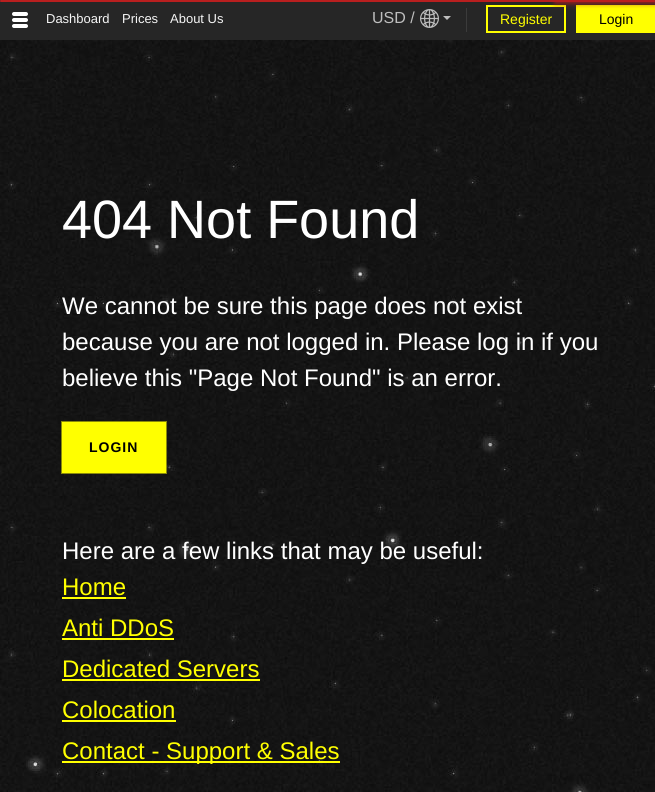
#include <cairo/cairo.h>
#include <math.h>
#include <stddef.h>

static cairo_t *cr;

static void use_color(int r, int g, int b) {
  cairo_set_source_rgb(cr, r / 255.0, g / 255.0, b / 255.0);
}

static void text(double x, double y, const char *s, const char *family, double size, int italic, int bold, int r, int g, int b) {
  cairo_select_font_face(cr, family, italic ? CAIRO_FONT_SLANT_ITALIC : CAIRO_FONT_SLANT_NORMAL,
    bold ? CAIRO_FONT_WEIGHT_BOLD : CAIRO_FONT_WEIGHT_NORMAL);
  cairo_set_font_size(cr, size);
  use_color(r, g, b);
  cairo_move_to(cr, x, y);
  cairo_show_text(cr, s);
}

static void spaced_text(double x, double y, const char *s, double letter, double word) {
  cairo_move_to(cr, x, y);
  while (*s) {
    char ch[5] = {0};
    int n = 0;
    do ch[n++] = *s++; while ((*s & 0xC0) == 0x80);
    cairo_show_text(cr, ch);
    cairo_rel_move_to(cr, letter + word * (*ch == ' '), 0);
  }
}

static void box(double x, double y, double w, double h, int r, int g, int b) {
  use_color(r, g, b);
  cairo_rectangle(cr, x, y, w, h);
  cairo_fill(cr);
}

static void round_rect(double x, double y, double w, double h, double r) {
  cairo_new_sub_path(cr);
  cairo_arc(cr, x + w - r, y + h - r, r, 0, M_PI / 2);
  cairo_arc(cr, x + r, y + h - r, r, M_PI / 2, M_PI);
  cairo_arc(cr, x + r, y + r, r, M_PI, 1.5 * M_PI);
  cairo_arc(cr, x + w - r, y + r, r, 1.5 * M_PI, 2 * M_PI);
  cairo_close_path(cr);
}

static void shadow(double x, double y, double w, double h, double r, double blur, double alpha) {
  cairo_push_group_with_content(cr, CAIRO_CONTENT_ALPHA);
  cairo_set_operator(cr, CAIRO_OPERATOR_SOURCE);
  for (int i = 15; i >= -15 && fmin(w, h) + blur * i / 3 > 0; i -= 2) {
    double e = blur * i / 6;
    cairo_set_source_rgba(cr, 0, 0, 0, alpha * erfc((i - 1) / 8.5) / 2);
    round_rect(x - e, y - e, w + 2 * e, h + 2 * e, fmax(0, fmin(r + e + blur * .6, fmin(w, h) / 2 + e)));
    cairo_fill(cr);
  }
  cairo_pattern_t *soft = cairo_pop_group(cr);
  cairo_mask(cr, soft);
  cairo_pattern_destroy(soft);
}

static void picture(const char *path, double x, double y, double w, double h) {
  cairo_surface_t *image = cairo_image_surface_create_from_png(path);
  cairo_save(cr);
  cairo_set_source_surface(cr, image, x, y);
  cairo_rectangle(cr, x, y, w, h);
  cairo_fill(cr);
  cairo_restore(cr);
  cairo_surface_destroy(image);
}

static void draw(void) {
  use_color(255, 255, 255);
  cairo_paint(cr);
  picture("img_01.png", 0, 40, 655, 752);
  box(0, 0, 655, 40, 38, 38, 38);
  use_color(185, 31, 31);
  round_rect(0, 0, 655, 2, 1);
  cairo_fill(cr);
  cairo_rectangle(cr, 487, 6, 78, 26);
  use_color(255, 255, 0);
  cairo_stroke(cr);
  box(576, 5, 79, 28, 255, 255, 0);
  cairo_save(cr);
  cairo_rectangle(cr, 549, 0, 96, 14);
  cairo_clip(cr);
  cairo_set_fill_rule(cr, CAIRO_FILL_RULE_EVEN_ODD);
  cairo_new_path(cr);
  cairo_move_to(cr, 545, 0);
  cairo_line_to(cr, 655, 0);
  cairo_line_to(cr, 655, 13);
  cairo_line_to(cr, 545, 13);
  cairo_close_path(cr);
  cairo_move_to(cr, 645, 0);
  cairo_curve_to(cr, 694.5, 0, 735, 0.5, 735, 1);
  cairo_curve_to(cr, 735, 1.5, 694.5, 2, 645, 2);
  cairo_curve_to(cr, 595.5, 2, 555, 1.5, 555, 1);
  cairo_curve_to(cr, 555, 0.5, 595.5, 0, 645, 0);
  cairo_close_path(cr);
  cairo_clip(cr);
  use_color(185, 31, 31);
  shadow(555, -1, 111, 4, 2, 3, 1);
  cairo_restore(cr);
  cairo_save(cr);
  cairo_rectangle(cr, 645, 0, 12, 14);
  cairo_clip(cr);
  cairo_set_fill_rule(cr, CAIRO_FILL_RULE_EVEN_ODD);
  cairo_new_path(cr);
  cairo_move_to(cr, 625, 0);
  cairo_line_to(cr, 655, 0);
  cairo_line_to(cr, 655, 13);
  cairo_line_to(cr, 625, 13);
  cairo_close_path(cr);
  cairo_move_to(cr, 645, 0);
  cairo_curve_to(cr, 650.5, 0, 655, 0.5, 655, 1);
  cairo_curve_to(cr, 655, 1.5, 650.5, 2, 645, 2);
  cairo_curve_to(cr, 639.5, 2, 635, 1.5, 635, 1);
  cairo_curve_to(cr, 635, 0.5, 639.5, 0, 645, 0);
  cairo_close_path(cr);
  cairo_clip(cr);
  use_color(185, 31, 31);
  shadow(635, -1, 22, 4, 2, 3, 1);
  cairo_restore(cr);
  picture("img_02.png", 12, 12, 16, 16);
  picture("img_03.png", 420, 9, 19, 19);
  use_color(190, 190, 190);
  cairo_new_path(cr);
  cairo_move_to(cr, 443, 16);
  cairo_line_to(cr, 451, 16);
  cairo_line_to(cr, 447, 20);
  cairo_close_path(cr);
  cairo_fill(cr);
  box(466, 8, 1, 24, 59, 59, 59);
  box(62, 422, 104, 51, 255, 255, 0);
  cairo_rectangle(cr, 61.5, 421.5, 105, 52);
  cairo_set_source_rgba(cr, 1, 1, 0, 0.5);
  cairo_set_line_width(cr, 1);
  cairo_stroke(cr);
  box(62, 597, 64, 2, 255, 255, 0);
  box(62, 638, 112, 2, 255, 255, 0);
  box(62, 679, 198, 2, 255, 255, 0);
  box(62, 720, 114, 2, 255, 255, 0);
  box(62, 761, 278, 2, 255, 255, 0);
  text(46, 23, "Dashboard", "Liberation Sans", 13, 0, 0, 245, 245, 245);
  text(122, 23, "Prices", "Liberation Sans", 13, 0, 0, 245, 245, 245);
  text(170, 23, "About Us", "Liberation Sans", 13, 0, 0, 245, 245, 245);
  text(372, 23, "USD /", "Liberation Sans", 16, 0, 0, 190, 190, 190);
  text(500, 24, "Register", "Liberation Sans", 14, 0, 0, 255, 255, 0);
  text(599, 24, "Login", "Liberation Sans", 14, 0, 0, 0, 0, 0);
  text(62, 238, "404 Not Found", "Liberation Sans", 54, 0, 0, 255, 255, 255);
  text(62, 314, "We cannot be sure this page does not exist", "Liberation Sans", 24, 0, 0, 255, 255, 255);
  text(62, 350, "because you are not logged in. Please log in if you", "Liberation Sans", 24, 0, 0, 255, 255, 255);
  text(62, 386, "believe this \"Page Not Found\" is an error.", "Liberation Sans", 24, 0, 0, 255, 255, 255);
  cairo_select_font_face(cr, "Liberation Sans", CAIRO_FONT_SLANT_NORMAL, CAIRO_FONT_WEIGHT_BOLD);
  cairo_set_font_size(cr, 14);
  use_color(0, 0, 0);
  spaced_text(89, 452, "LOGIN", 1, 0);
  text(62, 559, "Here are a few links that may be useful:", "Liberation Sans", 24, 0, 0, 255, 255, 255);
  text(62, 595, "Home", "Liberation Sans", 24, 0, 0, 255, 255, 0);
  text(62, 636, "Anti DDoS", "Liberation Sans", 24, 0, 0, 255, 255, 0);
  text(62, 677, "Dedicated Servers", "Liberation Sans", 24, 0, 0, 255, 255, 0);
  text(62, 718, "Colocation", "Liberation Sans", 24, 0, 0, 255, 255, 0);
  text(62, 759, "Contact - Support & Sales", "Liberation Sans", 24, 0, 0, 255, 255, 0);
}

int main(void) {
  cairo_surface_t *surface = cairo_image_surface_create(CAIRO_FORMAT_RGB24, 655, 792);
  cr = cairo_create(surface);
  cairo_font_options_t *options = cairo_font_options_create();
  cairo_font_options_set_hint_metrics(options, CAIRO_HINT_METRICS_OFF);
  cairo_font_options_set_hint_style(options, CAIRO_HINT_STYLE_NONE);
  cairo_set_font_options(cr, options);
  cairo_set_miter_limit(cr, 4);
  draw();
  cairo_surface_write_to_png(surface, "out.png");
  cairo_font_options_destroy(options);
  cairo_destroy(cr);
  cairo_surface_destroy(surface);
  return 0;
}
